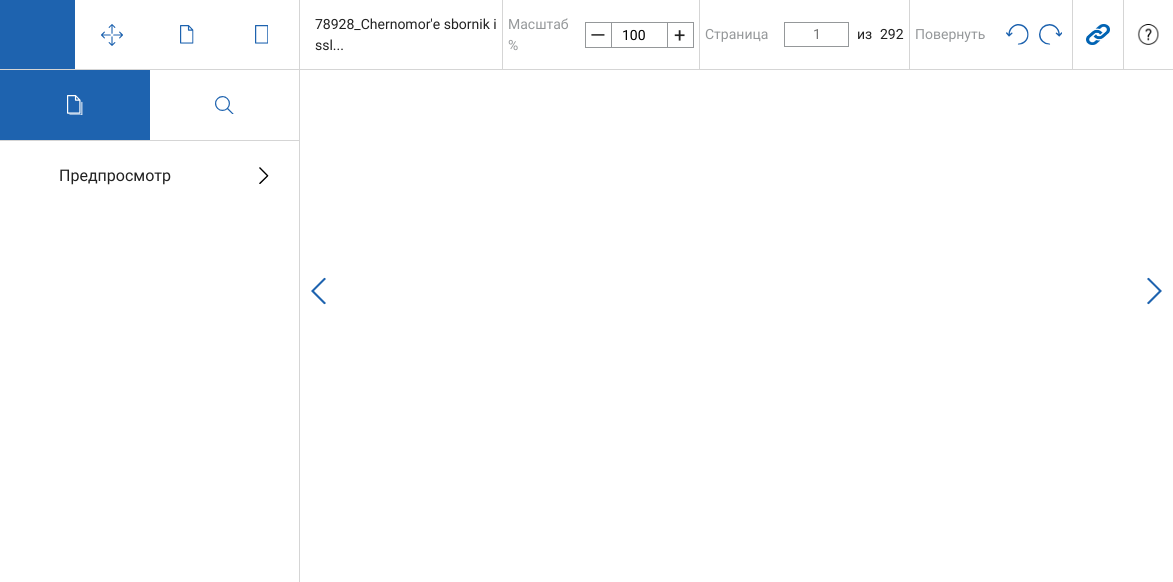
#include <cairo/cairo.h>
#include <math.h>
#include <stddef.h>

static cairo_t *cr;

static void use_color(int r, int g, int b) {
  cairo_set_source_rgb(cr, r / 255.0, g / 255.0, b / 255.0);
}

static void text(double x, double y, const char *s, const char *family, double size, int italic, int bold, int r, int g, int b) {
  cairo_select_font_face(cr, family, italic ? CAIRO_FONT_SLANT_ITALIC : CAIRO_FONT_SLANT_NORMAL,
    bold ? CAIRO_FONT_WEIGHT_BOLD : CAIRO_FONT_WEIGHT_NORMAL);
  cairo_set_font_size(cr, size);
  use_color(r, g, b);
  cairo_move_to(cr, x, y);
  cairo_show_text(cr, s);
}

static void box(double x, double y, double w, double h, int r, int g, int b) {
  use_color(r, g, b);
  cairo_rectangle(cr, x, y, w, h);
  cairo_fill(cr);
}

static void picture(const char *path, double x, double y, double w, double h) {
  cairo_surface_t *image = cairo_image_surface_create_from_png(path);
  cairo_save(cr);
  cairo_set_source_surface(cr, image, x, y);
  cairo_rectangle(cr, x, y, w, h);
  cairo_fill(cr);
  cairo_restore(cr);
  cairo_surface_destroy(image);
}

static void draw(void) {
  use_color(255, 255, 255);
  cairo_paint(cr);
  box(300, 69, 873, 1, 213, 213, 213);
  box(502, 0, 1, 69, 213, 213, 213);
  box(699, 0, 1, 69, 213, 213, 213);
  cairo_rectangle(cr, 585.5, 22.5, 108, 25);
  use_color(149, 152, 154);
  cairo_set_line_width(cr, 1);
  cairo_stroke(cr);
  box(611, 22, 1, 26, 149, 152, 154);
  box(667, 22, 1, 26, 149, 152, 154);
  box(909, 0, 1, 69, 213, 213, 213);
  cairo_rectangle(cr, 784.5, 22.5, 64, 24);
  use_color(149, 152, 154);
  cairo_stroke(cr);
  box(1072, 0, 1, 69, 213, 213, 213);
  picture("img_01.png", 1006, 24, 23, 21);
  picture("img_02.png", 1039, 24, 23, 21);
  box(1123, 0, 1, 69, 213, 213, 213);
  picture("img_03.png", 1086, 24, 24, 21);
  picture("img_04.png", 1137, 24, 22, 21);
  picture("img_05.png", 311, 277, 15, 28);
  picture("img_06.png", 1147, 277, 15, 28);
  box(299, 0, 1, 582, 213, 213, 213);
  box(0, 69, 299, 1, 213, 213, 213);
  box(0, 0, 75, 69, 30, 99, 175);
  picture("img_07.png", 101, 24, 22, 22);
  picture("img_08.png", 180, 25, 14, 19);
  picture("img_09.png", 255, 25, 13, 19);
  box(0, 70, 150, 70, 30, 99, 175);
  picture("img_10.png", 67, 95, 16, 20);
  picture("img_11.png", 215, 96, 19, 18);
  box(0, 140, 299, 1, 213, 213, 213);
  picture("img_12.png", 259, 167, 10, 17);
  text(315, 29, "78928_Chernomor'e sbornik i", "Roboto", 14, 0, 0, 34, 34, 34);
  text(315, 50, "ssl...", "Roboto", 14, 0, 0, 34, 34, 34);
  text(508, 29, "Масштаб", "Roboto", 14, 0, 0, 149, 152, 154);
  text(508, 50, "%", "Roboto", 14, 0, 0, 149, 152, 154);
  text(590, 42, "—", "Roboto", 20, 0, 0, 34, 34, 34);
  text(622, 40, "100", "Roboto", 14, 0, 0, 0, 0, 0);
  text(674, 42, "+", "Roboto", 20, 0, 0, 34, 34, 34);
  text(705, 39, "Страница", "Roboto", 14, 0, 0, 149, 152, 154);
  text(813, 39, "1", "Roboto", 14, 0, 0, 117, 117, 117);
  text(857, 39, "из", "Roboto", 14, 0, 0, 34, 34, 34);
  text(880, 39, "292", "Roboto", 14, 0, 0, 34, 34, 34);
  text(915, 39, "Повернуть", "Roboto", 14, 0, 0, 149, 152, 154);
  text(59, 181, "Предпросмотр", "Roboto", 16, 0, 0, 34, 34, 34);
}

int main(void) {
  cairo_surface_t *surface = cairo_image_surface_create(CAIRO_FORMAT_RGB24, 1173, 582);
  cr = cairo_create(surface);
  cairo_font_options_t *options = cairo_font_options_create();
  cairo_font_options_set_hint_metrics(options, CAIRO_HINT_METRICS_OFF);
  cairo_font_options_set_hint_style(options, CAIRO_HINT_STYLE_NONE);
  cairo_set_font_options(cr, options);
  cairo_set_miter_limit(cr, 4);
  draw();
  cairo_surface_write_to_png(surface, "out.png");
  cairo_font_options_destroy(options);
  cairo_destroy(cr);
  cairo_surface_destroy(surface);
  return 0;
}
